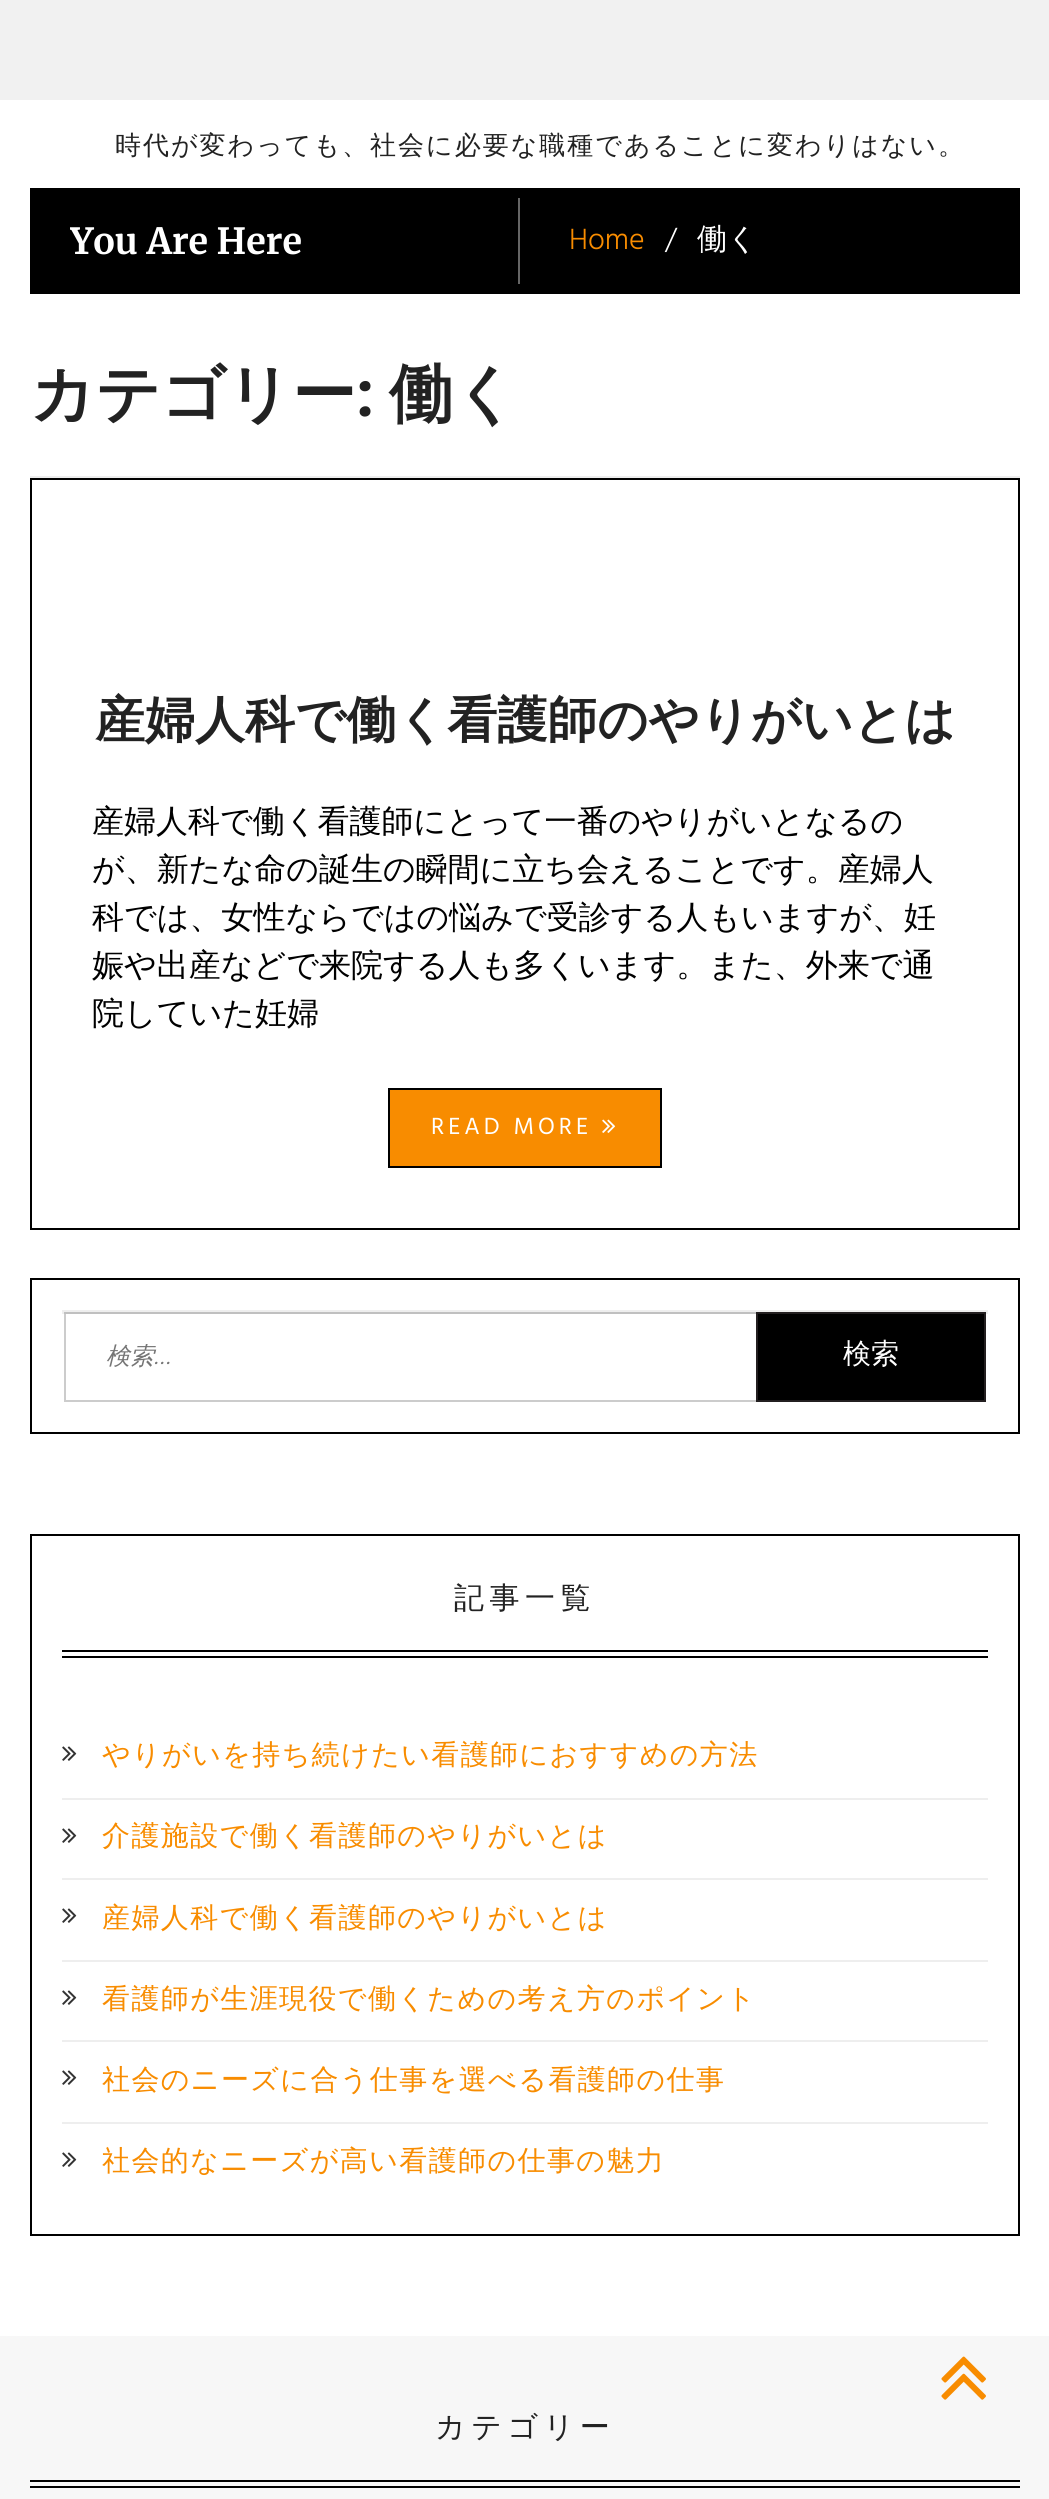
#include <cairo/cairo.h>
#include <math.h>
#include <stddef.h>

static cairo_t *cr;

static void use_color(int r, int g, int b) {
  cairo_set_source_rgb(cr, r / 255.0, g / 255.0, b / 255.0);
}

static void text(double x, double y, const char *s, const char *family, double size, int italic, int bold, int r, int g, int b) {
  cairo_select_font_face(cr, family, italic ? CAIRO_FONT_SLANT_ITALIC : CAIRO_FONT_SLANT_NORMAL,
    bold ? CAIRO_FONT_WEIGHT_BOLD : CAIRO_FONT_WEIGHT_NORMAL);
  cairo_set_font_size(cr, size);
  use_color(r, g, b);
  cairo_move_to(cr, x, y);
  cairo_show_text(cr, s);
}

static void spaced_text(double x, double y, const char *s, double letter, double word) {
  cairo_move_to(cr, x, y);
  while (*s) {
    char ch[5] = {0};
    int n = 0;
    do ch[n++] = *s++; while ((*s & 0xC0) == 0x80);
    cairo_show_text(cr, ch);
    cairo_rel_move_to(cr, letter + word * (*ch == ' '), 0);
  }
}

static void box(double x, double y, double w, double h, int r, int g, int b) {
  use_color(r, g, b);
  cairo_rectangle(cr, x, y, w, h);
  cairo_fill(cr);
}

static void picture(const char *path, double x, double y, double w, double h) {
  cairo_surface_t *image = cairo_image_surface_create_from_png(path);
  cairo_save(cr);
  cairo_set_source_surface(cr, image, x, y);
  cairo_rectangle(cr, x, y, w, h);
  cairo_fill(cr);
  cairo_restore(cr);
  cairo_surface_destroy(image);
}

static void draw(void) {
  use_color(255, 255, 255);
  cairo_paint(cr);
  box(0, 0, 1049, 100, 241, 241, 241);
  box(30, 188, 990, 106, 0, 0, 0);
  box(518, 198, 2, 86, 102, 102, 102);
  box(30, 476, 990, 2, 238, 238, 238);
  cairo_rectangle(cr, 31, 479, 988, 750);
  use_color(0, 0, 0);
  cairo_stroke(cr);
  use_color(248, 140, 0);
  cairo_rectangle(cr, 389, 1089, 272, 78);
  cairo_fill_preserve(cr);
  use_color(0, 0, 0);
  cairo_stroke(cr);
  picture("img_01.png", 602, 1119, 14, 14);
  cairo_rectangle(cr, 31, 1279, 988, 154);
  cairo_stroke(cr);
  box(62, 1310, 926, 4, 238, 238, 238);
  cairo_rectangle(cr, 65, 1313, 920, 88);
  cairo_set_source_rgba(cr, 0.267, 0.267, 0.267, 0.27);
  cairo_stroke(cr);
  use_color(0, 0, 0);
  cairo_rectangle(cr, 757, 1313, 228, 88);
  cairo_fill_preserve(cr);
  use_color(35, 31, 32);
  cairo_stroke(cr);
  cairo_rectangle(cr, 31, 1535, 988, 700);
  use_color(0, 0, 0);
  cairo_stroke(cr);
  box(62, 1650, 926, 2, 0, 0, 0);
  box(62, 1656, 926, 2, 0, 0, 0);
  box(62, 1798, 926, 2, 238, 238, 238);
  picture("img_02.png", 62, 1746, 15, 15);
  box(62, 1878, 926, 2, 238, 238, 238);
  picture("img_02.png", 62, 1828, 15, 15);
  box(62, 1960, 926, 2, 238, 238, 238);
  picture("img_02.png", 62, 1908, 15, 15);
  box(62, 2040, 926, 2, 238, 238, 238);
  picture("img_02.png", 62, 1990, 15, 15);
  box(62, 2122, 926, 2, 238, 238, 238);
  picture("img_02.png", 62, 2070, 15, 15);
  picture("img_02.png", 62, 2152, 15, 15);
  box(0, 2336, 1049, 163, 247, 247, 247);
  box(30, 2480, 990, 2, 0, 0, 0);
  box(30, 2486, 990, 2, 0, 0, 0);
  picture("img_03.png", 941, 2356, 45, 44);
  cairo_select_font_face(cr, "WenQuanYi Zen Hei Medium", CAIRO_FONT_SLANT_NORMAL, CAIRO_FONT_WEIGHT_NORMAL);
  cairo_set_font_size(cr, 26);
  use_color(34, 34, 34);
  spaced_text(115, 154, "時代が変わっても、社会に必要な職種であることに変わりはない。", 2, 0);
  cairo_save(cr);
  cairo_rectangle(cr, 70, 198, 448, 86);
  cairo_clip(cr);
  text(70, 254, "You Are Here", "Merriweather", 36, 0, 1, 255, 255, 255);
  cairo_restore(cr);
  text(569, 249, "Home", "Hind Light", 30, 0, 0, 248, 140, 0);
  text(665, 249, "/", "Hind Light", 30, 0, 0, 255, 255, 255);
  text(697, 249, "働く", "WenQuanYi Zen Hei Medium", 30, 0, 0, 255, 255, 255);
  text(30, 416, "カテゴリー", "WenQuanYi Zen Hei", 64, 0, 1, 34, 34, 34);
  text(356, 416, ":", "Merriweather", 64, 0, 1, 34, 34, 34);
  text(389, 416, "働く", "WenQuanYi Zen Hei", 64, 0, 1, 34, 34, 34);
  text(95, 737, "産婦人科で働く看護師のやりがいとは", "WenQuanYi Zen Hei", 50, 0, 1, 34, 34, 34);
  text(92, 832, "産婦人科で働く看護師にとって一番のやりがいとなるの", "WenQuanYi Zen Hei Medium", 32, 0, 0, 0, 0, 0);
  text(92, 880, "が、新たな命の誕生の瞬間に立ち会えることです。産婦人", "WenQuanYi Zen Hei Medium", 32, 0, 0, 0, 0, 0);
  text(92, 928, "科では、女性ならではの悩みで受診する人もいますが、妊", "WenQuanYi Zen Hei Medium", 32, 0, 0, 0, 0, 0);
  text(92, 976, "娠や出産などで来院する人も多くいます。また、外来で通", "WenQuanYi Zen Hei Medium", 32, 0, 0, 0, 0, 0);
  text(92, 1024, "院していた妊婦", "WenQuanYi Zen Hei Medium", 32, 0, 0, 0, 0, 0);
  cairo_select_font_face(cr, "Hind", CAIRO_FONT_SLANT_NORMAL, CAIRO_FONT_WEIGHT_NORMAL);
  cairo_set_font_size(cr, 24);
  use_color(255, 255, 255);
  spaced_text(431, 1134, "READ MORE", 4, 0);
  text(106, 1364, "検索", "WenQuanYi Zen Hei Medium", 24, 1, 0, 117, 117, 117);
  text(154, 1364, "…", "Hind Light", 24, 1, 0, 117, 117, 117);
  text(843, 1363, "検索", "WenQuanYi Zen Hei Medium", 28, 0, 0, 255, 255, 255);
  cairo_set_font_size(cr, 30);
  use_color(34, 34, 34);
  spaced_text(454, 1608, "記事一覧", 5.5, 0);
  cairo_set_font_size(cr, 28);
  use_color(248, 140, 0);
  spaced_text(102, 1764, "やりがいを持ち続けたい看護師におすすめの方法", 1.4, 0);
  spaced_text(102, 1845, "介護施設で働く看護師のやりがいとは", 1.4, 0);
  spaced_text(102, 1927, "産婦人科で働く看護師のやりがいとは", 1.4, 0);
  spaced_text(102, 2008, "看護師が生涯現役で働くための考え方のポイント", 1.4, 0);
  spaced_text(102, 2089, "社会のニーズに合う仕事を選べる看護師の仕事", 1.4, 0);
  spaced_text(102, 2170, "社会的なニーズが高い看護師の仕事の魅力", 1.4, 0);
  cairo_set_font_size(cr, 30);
  use_color(34, 34, 34);
  spaced_text(435, 2437, "カテゴリー", 5.5, 0);
}

int main(void) {
  cairo_surface_t *surface = cairo_image_surface_create(CAIRO_FORMAT_RGB24, 1049, 2499);
  cr = cairo_create(surface);
  cairo_font_options_t *options = cairo_font_options_create();
  cairo_font_options_set_hint_metrics(options, CAIRO_HINT_METRICS_OFF);
  cairo_font_options_set_hint_style(options, CAIRO_HINT_STYLE_NONE);
  cairo_set_font_options(cr, options);
  cairo_set_miter_limit(cr, 4);
  draw();
  cairo_surface_write_to_png(surface, "out.png");
  cairo_font_options_destroy(options);
  cairo_destroy(cr);
  cairo_surface_destroy(surface);
  return 0;
}
